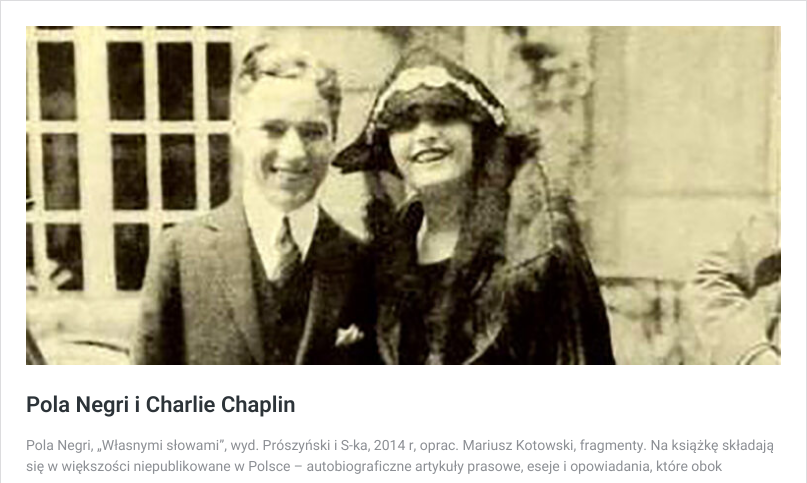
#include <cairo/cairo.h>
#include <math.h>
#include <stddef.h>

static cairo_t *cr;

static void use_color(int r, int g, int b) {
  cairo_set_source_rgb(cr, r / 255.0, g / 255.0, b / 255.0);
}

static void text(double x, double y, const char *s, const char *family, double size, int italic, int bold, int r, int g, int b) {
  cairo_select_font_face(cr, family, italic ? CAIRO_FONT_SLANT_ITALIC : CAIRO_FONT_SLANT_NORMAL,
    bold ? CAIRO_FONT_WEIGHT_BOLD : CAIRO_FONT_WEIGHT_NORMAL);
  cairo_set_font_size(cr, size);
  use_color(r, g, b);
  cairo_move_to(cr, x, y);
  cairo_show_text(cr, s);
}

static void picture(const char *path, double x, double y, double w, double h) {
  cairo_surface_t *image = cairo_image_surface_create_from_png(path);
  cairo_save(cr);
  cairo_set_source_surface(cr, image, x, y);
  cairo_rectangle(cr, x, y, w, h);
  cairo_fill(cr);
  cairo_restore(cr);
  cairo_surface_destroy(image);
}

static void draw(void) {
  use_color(255, 255, 255);
  cairo_paint(cr);
  cairo_rectangle(cr, 0.5, 0.5, 806, 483);
  use_color(220, 220, 222);
  cairo_set_line_width(cr, 1);
  cairo_stroke(cr);
  picture("img_01.png", 26, 26, 755, 339);
  text(26, 412, "Pola Negri i Charlie Chaplin", "Roboto SemiBold", 22, 0, 0, 44, 51, 56);
  text(26, 450, "Pola Negri, „Własnymi słowami”, wyd. Prószyński i S-ka, 2014 r, oprac. Mariusz Kotowski, fragmenty. Na książkę składają", "Roboto", 14, 0, 0, 140, 143, 148);
  text(26, 471, "się w większości niepublikowane w Polsce – autobiograficzne artykuły prasowe, eseje i opowiadania, które obok", "Roboto", 14, 0, 0, 140, 143, 148);
}

int main(void) {
  cairo_surface_t *surface = cairo_image_surface_create(CAIRO_FORMAT_RGB24, 807, 483);
  cr = cairo_create(surface);
  cairo_font_options_t *options = cairo_font_options_create();
  cairo_font_options_set_hint_metrics(options, CAIRO_HINT_METRICS_OFF);
  cairo_font_options_set_hint_style(options, CAIRO_HINT_STYLE_NONE);
  cairo_set_font_options(cr, options);
  cairo_set_miter_limit(cr, 4);
  draw();
  cairo_surface_write_to_png(surface, "out.png");
  cairo_font_options_destroy(options);
  cairo_destroy(cr);
  cairo_surface_destroy(surface);
  return 0;
}
